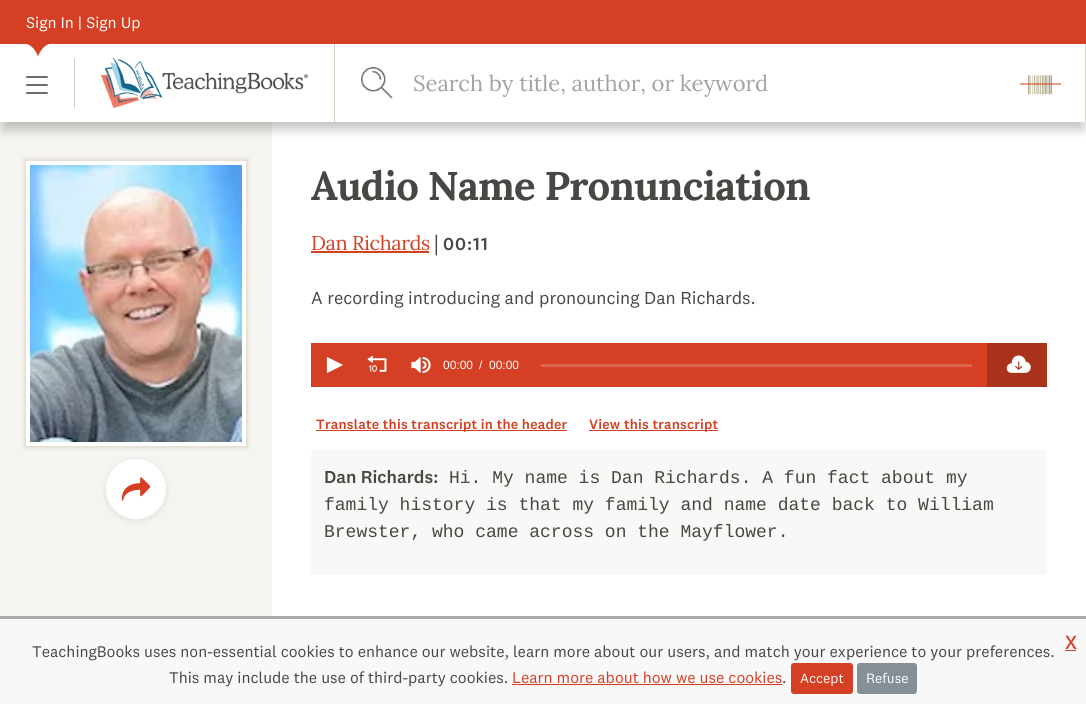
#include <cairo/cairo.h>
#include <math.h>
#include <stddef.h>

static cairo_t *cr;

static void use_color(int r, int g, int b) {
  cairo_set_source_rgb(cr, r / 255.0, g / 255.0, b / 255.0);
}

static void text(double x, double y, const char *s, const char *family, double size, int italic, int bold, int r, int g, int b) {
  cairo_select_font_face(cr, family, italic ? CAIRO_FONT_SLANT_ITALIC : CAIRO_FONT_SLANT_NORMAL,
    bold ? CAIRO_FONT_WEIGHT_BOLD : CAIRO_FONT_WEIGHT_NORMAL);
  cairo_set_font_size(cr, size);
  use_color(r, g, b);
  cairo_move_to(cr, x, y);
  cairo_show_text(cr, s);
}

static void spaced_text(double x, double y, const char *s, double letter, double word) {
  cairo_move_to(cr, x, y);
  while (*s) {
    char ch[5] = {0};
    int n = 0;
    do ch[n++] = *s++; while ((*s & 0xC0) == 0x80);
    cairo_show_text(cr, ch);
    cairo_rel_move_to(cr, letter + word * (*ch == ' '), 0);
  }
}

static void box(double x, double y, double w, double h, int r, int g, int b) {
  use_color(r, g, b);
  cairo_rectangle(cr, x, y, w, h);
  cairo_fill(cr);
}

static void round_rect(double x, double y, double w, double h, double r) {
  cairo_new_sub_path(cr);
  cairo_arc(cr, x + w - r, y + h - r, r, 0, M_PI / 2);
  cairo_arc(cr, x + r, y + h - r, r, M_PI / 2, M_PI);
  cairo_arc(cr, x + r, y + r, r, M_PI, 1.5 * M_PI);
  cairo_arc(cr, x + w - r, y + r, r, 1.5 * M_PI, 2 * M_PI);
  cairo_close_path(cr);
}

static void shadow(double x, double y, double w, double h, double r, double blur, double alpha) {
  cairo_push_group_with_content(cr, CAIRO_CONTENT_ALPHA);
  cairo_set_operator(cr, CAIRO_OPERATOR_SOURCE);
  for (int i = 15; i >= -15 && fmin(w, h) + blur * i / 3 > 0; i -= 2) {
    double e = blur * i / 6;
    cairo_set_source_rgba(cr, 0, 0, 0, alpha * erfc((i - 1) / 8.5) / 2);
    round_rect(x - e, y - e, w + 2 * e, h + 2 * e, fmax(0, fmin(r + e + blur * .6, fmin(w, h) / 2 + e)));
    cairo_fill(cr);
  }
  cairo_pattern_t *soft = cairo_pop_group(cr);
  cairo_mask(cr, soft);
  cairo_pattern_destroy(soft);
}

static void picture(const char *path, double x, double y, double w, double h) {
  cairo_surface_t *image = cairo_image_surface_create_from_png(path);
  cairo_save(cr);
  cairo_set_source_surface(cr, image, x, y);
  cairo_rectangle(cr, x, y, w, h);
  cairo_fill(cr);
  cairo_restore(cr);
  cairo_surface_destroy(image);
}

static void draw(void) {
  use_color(255, 255, 255);
  cairo_paint(cr);
  box(0, 122, 272, 494, 245, 244, 240);
  cairo_save(cr);
  cairo_rectangle(cr, 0, 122, 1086, 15);
  cairo_clip(cr);
  use_color(0, 0, 0);
  shadow(3, 57, 1080, 72, 0, 6, 0.25);
  cairo_restore(cr);
  use_color(213, 63, 35);
  cairo_new_path(cr);
  cairo_move_to(cr, 13, 29);
  cairo_line_to(cr, 63, 29);
  cairo_line_to(cr, 38, 59);
  cairo_close_path(cr);
  cairo_fill(cr);
  use_color(255, 255, 255);
  cairo_new_path(cr);
  cairo_move_to(cr, 40, 70.5);
  cairo_curve_to(cr, 30.5, 63.5, 44, 36.5, 57, 45.5);
  cairo_curve_to(cr, 70, 55, 49.5, 77, 40, 70.5);
  cairo_close_path(cr);
  cairo_fill(cr);
  cairo_new_path(cr);
  cairo_move_to(cr, 36, 70.5);
  cairo_curve_to(cr, 26.5, 77, 6, 55, 19, 45.5);
  cairo_curve_to(cr, 32, 36.5, 45.5, 63.5, 36, 70.5);
  cairo_close_path(cr);
  cairo_fill(cr);
  box(0, 0, 1086, 44, 213, 63, 35);
  use_color(111, 109, 105);
  round_rect(26, 76, 22, 2, 1);
  cairo_fill(cr);
  round_rect(26, 84, 22, 2, 1);
  cairo_fill(cr);
  round_rect(26, 92, 22, 2, 1);
  cairo_fill(cr);
  box(74, 58, 1, 50, 214, 210, 194);
  picture("img_01.png", 101, 58, 207, 50);
  box(1085, 44, 1, 78, 214, 210, 194);
  box(334, 44, 1, 78, 214, 210, 194);
  picture("img_02.png", 361, 67, 32, 32);
  picture("img_03.png", 1028, 75, 24, 20);
  cairo_set_source_rgba(cr, 0.835, 0.247, 0.137, 0.5);
  cairo_rectangle(cr, 1020, 83, 41, 2);
  cairo_fill(cr);
  use_color(200, 192, 177);
  shadow(24, 159, 224, 289, 0, 2, 0.5);
  box(26, 161, 220, 285, 255, 255, 255);
  picture("img_04.png", 30, 165, 212, 277);
  use_color(200, 192, 177);
  shadow(104, 459, 64, 64, 32, 2, 0.25);
  use_color(255, 255, 255);
  cairo_arc(cr, 136, 489, 30, 0, 2 * M_PI);
  cairo_fill(cr);
  picture("img_05.png", 121, 477, 30, 24);
  box(311, 251, 118, 2, 213, 63, 35);
  box(311, 343, 676, 44, 213, 63, 35);
  picture("img_06.png", 326, 357, 17, 16);
  picture("img_07.png", 367, 355, 20, 17);
  picture("img_08.png", 411, 357, 20, 16);
  box(541, 364, 431, 3, 221, 101, 79);
  box(987, 343, 60, 44, 169, 50, 28);
  picture("img_09.png", 1006, 355, 25, 18);
  box(316, 430, 251, 1, 213, 63, 35);
  box(589, 430, 129, 1, 213, 63, 35);
  use_color(249, 248, 246);
  round_rect(311, 450, 736, 125, 3);
  cairo_fill(cr);
  box(0, 619, 1086, 85, 248, 248, 248);
  box(0, 616, 1086, 3, 170, 170, 170);
  box(1065, 650, 11, 1, 213, 63, 35);
  box(512, 684, 270, 1, 213, 63, 35);
  round_rect(791.5, 663.5, 61, 30, 2.5);
  cairo_fill_preserve(cr);
  cairo_set_line_width(cr, 1);
  cairo_stroke(cr);
  use_color(134, 142, 150);
  round_rect(857.5, 663.5, 59, 30, 2.5);
  cairo_fill_preserve(cr);
  cairo_stroke(cr);
  text(26, 28, "Sign In | Sign Up", "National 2", 16, 0, 0, 255, 255, 255);
  text(413, 91, "Search by title, author, or keyword", "Lora", 22, 0, 0, 163, 162, 161);
  cairo_select_font_face(cr, "Lora", CAIRO_FONT_SLANT_NORMAL, CAIRO_FONT_WEIGHT_BOLD);
  cairo_set_font_size(cr, 40);
  use_color(72, 71, 68);
  spaced_text(311, 200, "Audio Name Pronunciation", -0.8, 0);
  cairo_select_font_face(cr, "Lora", CAIRO_FONT_SLANT_NORMAL, CAIRO_FONT_WEIGHT_NORMAL);
  cairo_set_font_size(cr, 20);
  use_color(213, 63, 35);
  spaced_text(311, 250, "Dan Richards", -0.4, 0);
  use_color(72, 71, 68);
  spaced_text(434, 250, "|", -0.4, 0);
  cairo_select_font_face(cr, "National 2 Medium", CAIRO_FONT_SLANT_NORMAL, CAIRO_FONT_WEIGHT_NORMAL);
  cairo_set_font_size(cr, 18);
  spaced_text(443, 250, "00:11", 1, 0);
  text(311, 304, "A recording introducing and pronouncing Dan Richards.", "National 2", 18, 0, 0, 72, 71, 68);
  text(443, 369, "00:00", "Liberation Sans", 12, 0, 0, 255, 255, 255);
  text(479, 369, "/", "Liberation Sans", 12, 0, 0, 255, 255, 255);
  text(489, 369, "00:00", "Liberation Sans", 12, 0, 0, 255, 255, 255);
  cairo_select_font_face(cr, "National 2 Medium", CAIRO_FONT_SLANT_NORMAL, CAIRO_FONT_WEIGHT_NORMAL);
  cairo_set_font_size(cr, 14);
  use_color(213, 63, 35);
  spaced_text(316, 429, "Translate this transcript in the header", 0.2, 0);
  spaced_text(589, 429, "View this transcript", 0.2, 0);
  text(324, 483, "Dan Richards:", "National 2 Medium", 18, 0, 0, 72, 71, 68);
  text(449, 483, "Hi. My name is Dan Richards. A fun fact about my", "Liberation Mono", 18, 0, 0, 72, 71, 68);
  text(324, 510, "family history is that my family and name date back to William", "Liberation Mono", 18, 0, 0, 72, 71, 68);
  text(324, 537, "Brewster, who came across on the Mayflower.", "Liberation Mono", 18, 0, 0, 72, 71, 68);
  text(1065, 649, "X", "National 2", 19, 0, 1, 213, 63, 35);
  text(32, 657, "TeachingBooks uses non-essential cookies to enhance our website, learn more about our users, and match your experience to your preferences.", "National 2", 16, 0, 0, 72, 71, 68);
  text(169, 683, "This may include the use of third-party cookies.", "National 2", 16, 0, 0, 72, 71, 68);
  text(512, 683, "Learn more about how we use cookies", "National 2", 16, 0, 0, 213, 63, 35);
  text(782, 683, ".", "National 2", 16, 0, 0, 72, 71, 68);
  text(800, 683, "Accept", "National 2", 14, 0, 0, 255, 255, 255);
  text(866, 683, "Refuse", "National 2", 14, 0, 0, 255, 255, 255);
}

int main(void) {
  cairo_surface_t *surface = cairo_image_surface_create(CAIRO_FORMAT_RGB24, 1086, 704);
  cr = cairo_create(surface);
  cairo_font_options_t *options = cairo_font_options_create();
  cairo_font_options_set_hint_metrics(options, CAIRO_HINT_METRICS_OFF);
  cairo_font_options_set_hint_style(options, CAIRO_HINT_STYLE_NONE);
  cairo_set_font_options(cr, options);
  cairo_set_miter_limit(cr, 4);
  draw();
  cairo_surface_write_to_png(surface, "out.png");
  cairo_font_options_destroy(options);
  cairo_destroy(cr);
  cairo_surface_destroy(surface);
  return 0;
}
